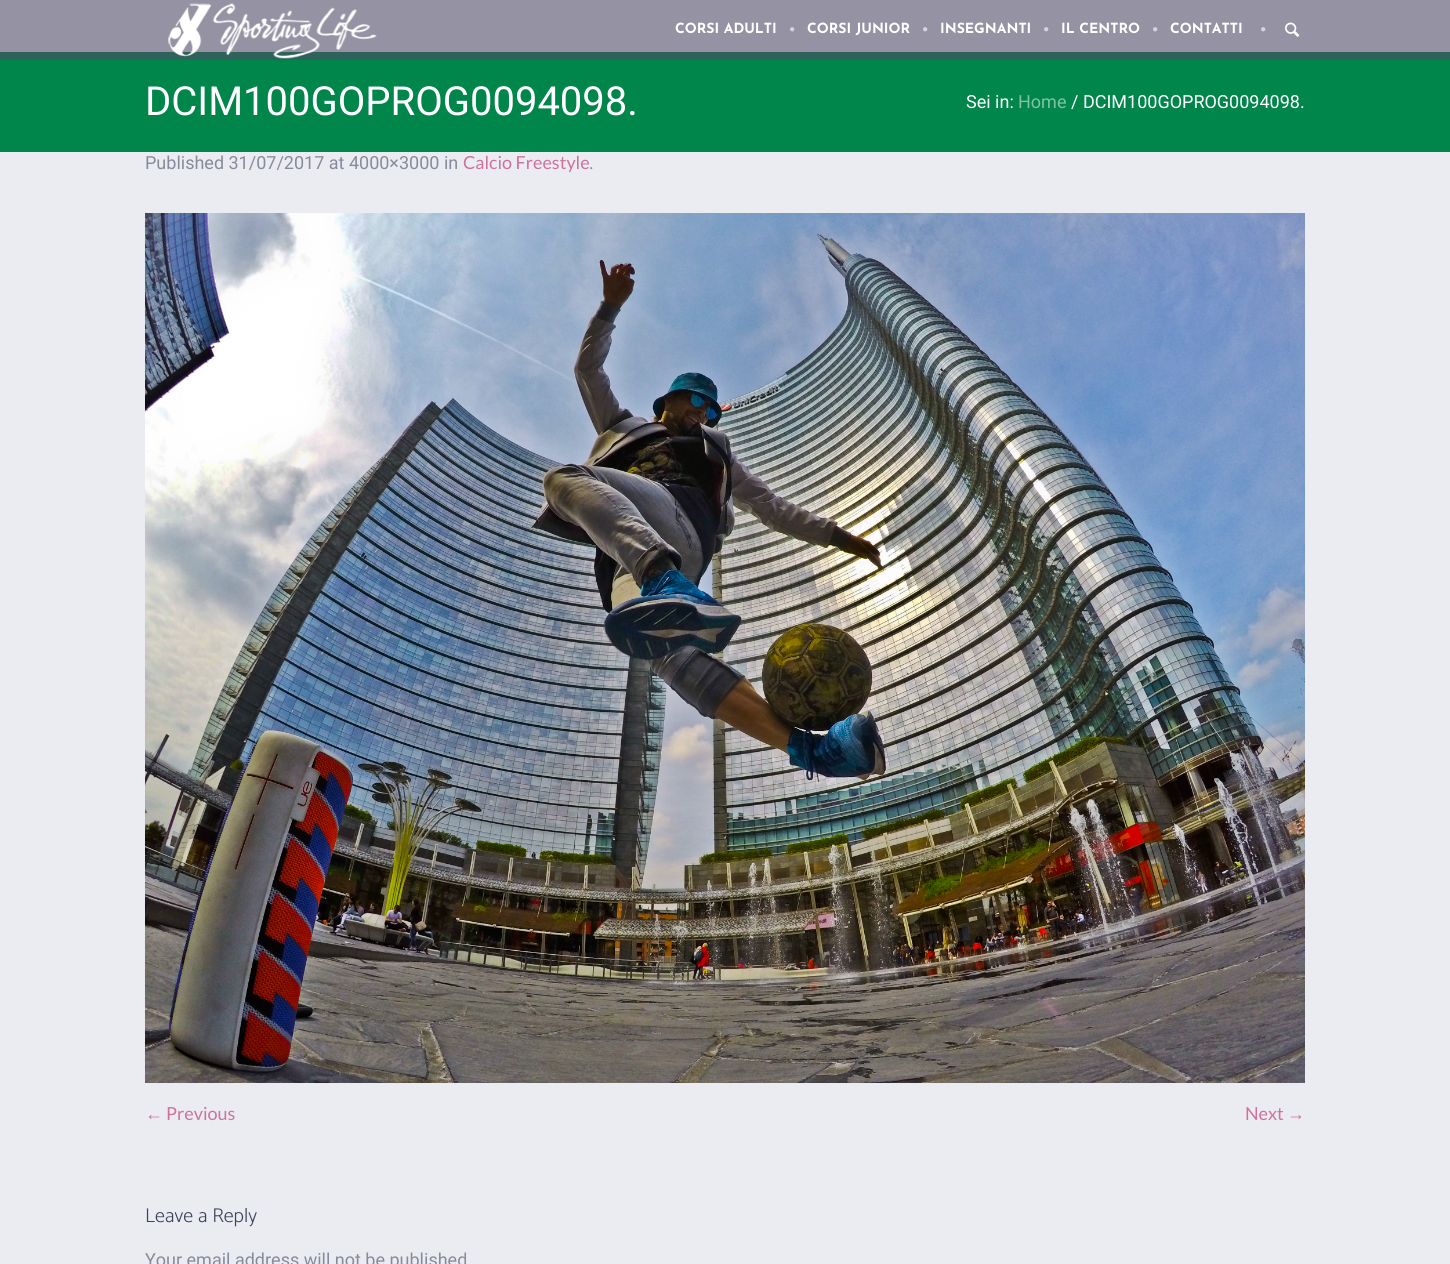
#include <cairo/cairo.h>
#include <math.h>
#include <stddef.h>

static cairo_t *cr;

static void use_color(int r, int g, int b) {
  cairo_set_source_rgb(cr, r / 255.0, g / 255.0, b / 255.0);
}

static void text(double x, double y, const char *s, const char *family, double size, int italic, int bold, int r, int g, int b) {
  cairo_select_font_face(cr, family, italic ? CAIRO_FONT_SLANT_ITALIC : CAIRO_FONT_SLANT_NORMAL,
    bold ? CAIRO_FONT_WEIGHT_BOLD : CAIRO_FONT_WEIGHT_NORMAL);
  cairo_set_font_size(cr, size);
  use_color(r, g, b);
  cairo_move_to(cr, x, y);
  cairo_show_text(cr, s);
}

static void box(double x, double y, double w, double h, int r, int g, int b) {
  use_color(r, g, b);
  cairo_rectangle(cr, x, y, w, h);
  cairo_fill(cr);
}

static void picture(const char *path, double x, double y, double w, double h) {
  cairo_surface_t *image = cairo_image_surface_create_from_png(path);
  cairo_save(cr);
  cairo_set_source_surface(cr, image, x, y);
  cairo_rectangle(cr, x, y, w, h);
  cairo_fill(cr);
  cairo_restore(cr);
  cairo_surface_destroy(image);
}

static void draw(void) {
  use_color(149, 147, 163);
  cairo_paint(cr);
  box(0, 52, 1450, 8, 47, 98, 91);
  picture("img_01.png", 168, 3, 209, 56);
  picture("img_02.png", 790, 27, 5, 5);
  picture("img_02.png", 923, 27, 5, 5);
  picture("img_02.png", 1044, 27, 5, 5);
  picture("img_02.png", 1153, 27, 5, 5);
  picture("img_02.png", 1261, 27, 5, 5);
  picture("img_03.png", 1285, 22, 15, 15);
  box(0, 60, 1450, 92, 0, 133, 74);
  box(0, 152, 1450, 1112, 235, 236, 242);
  picture("img_04.png", 145, 213, 1160, 870);
  text(675, 33, "CORSI ADULTI", "Josefin Sans", 14, 0, 1, 255, 255, 255);
  text(807, 33, "CORSI JUNIOR", "Josefin Sans", 14, 0, 1, 255, 255, 255);
  text(940, 33, "INSEGNANTI", "Josefin Sans", 14, 0, 1, 255, 255, 255);
  text(1061, 33, "IL CENTRO", "Josefin Sans", 14, 0, 1, 255, 255, 255);
  text(1170, 33, "CONTATTI", "Josefin Sans", 14, 0, 1, 255, 255, 255);
  text(145, 115, "DCIM100GOPROG0094098.", "Roboto", 40, 0, 0, 255, 255, 255);
  text(966, 108, "Sei in:", "Roboto", 18, 0, 0, 255, 255, 255);
  text(1018, 108, "Home", "Roboto", 18, 0, 0, 128, 194, 165);
  text(1071, 108, "/ DCIM100GOPROG0094098.", "Roboto", 18, 0, 0, 255, 255, 255);
  text(145, 169, "Published 31/07/2017 at 4000×3000 in", "Roboto", 18, 0, 0, 135, 138, 154);
  text(463, 169, "Calcio Freestyle", "Lato", 18, 0, 0, 205, 115, 153);
  text(589, 169, ".", "Roboto", 18, 0, 0, 135, 138, 154);
  text(145, 1120, "←", "Liberation Sans", 18, 0, 0, 205, 115, 153);
  text(166, 1120, "Previous", "Lato", 18, 0, 0, 205, 115, 153);
  text(1245, 1120, "Next", "Lato", 18, 0, 0, 205, 115, 153);
  text(1287, 1120, "→", "Liberation Sans", 18, 0, 0, 205, 115, 153);
  text(145, 1222, "Leave a Reply", "Catamaran Light", 20, 0, 0, 58, 66, 89);
  text(145, 1266, "Your email address will not be published", "Roboto", 18, 0, 0, 135, 138, 154);
}

int main(void) {
  cairo_surface_t *surface = cairo_image_surface_create(CAIRO_FORMAT_RGB24, 1450, 1264);
  cr = cairo_create(surface);
  cairo_font_options_t *options = cairo_font_options_create();
  cairo_font_options_set_hint_metrics(options, CAIRO_HINT_METRICS_OFF);
  cairo_font_options_set_hint_style(options, CAIRO_HINT_STYLE_NONE);
  cairo_set_font_options(cr, options);
  cairo_set_miter_limit(cr, 4);
  draw();
  cairo_surface_write_to_png(surface, "out.png");
  cairo_font_options_destroy(options);
  cairo_destroy(cr);
  cairo_surface_destroy(surface);
  return 0;
}
